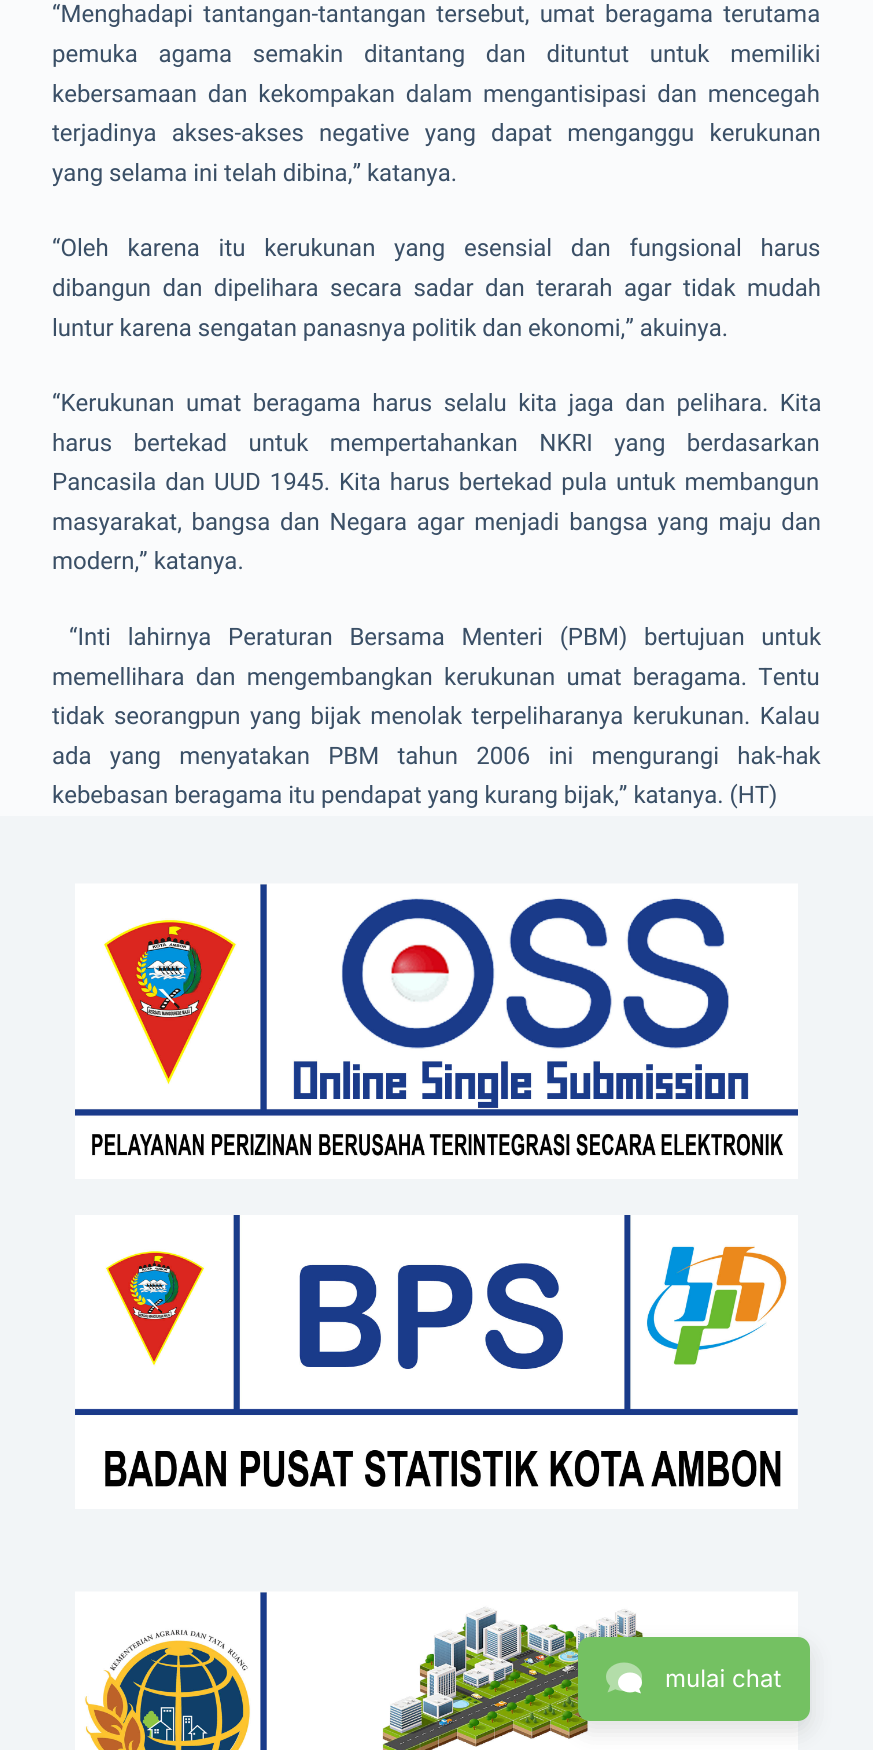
#include <cairo/cairo.h>
#include <math.h>
#include <stddef.h>

static cairo_t *cr;

static void use_color(int r, int g, int b) {
  cairo_set_source_rgb(cr, r / 255.0, g / 255.0, b / 255.0);
}

static void text(double x, double y, const char *s, const char *family, double size, int italic, int bold, int r, int g, int b) {
  cairo_select_font_face(cr, family, italic ? CAIRO_FONT_SLANT_ITALIC : CAIRO_FONT_SLANT_NORMAL,
    bold ? CAIRO_FONT_WEIGHT_BOLD : CAIRO_FONT_WEIGHT_NORMAL);
  cairo_set_font_size(cr, size);
  use_color(r, g, b);
  cairo_move_to(cr, x, y);
  cairo_show_text(cr, s);
}

static void spaced_text(double x, double y, const char *s, double letter, double word) {
  cairo_move_to(cr, x, y);
  while (*s) {
    char ch[5] = {0};
    int n = 0;
    do ch[n++] = *s++; while ((*s & 0xC0) == 0x80);
    cairo_show_text(cr, ch);
    cairo_rel_move_to(cr, letter + word * (*ch == ' '), 0);
  }
}

static void box(double x, double y, double w, double h, int r, int g, int b) {
  use_color(r, g, b);
  cairo_rectangle(cr, x, y, w, h);
  cairo_fill(cr);
}

static void round_rect(double x, double y, double w, double h, double r) {
  cairo_new_sub_path(cr);
  cairo_arc(cr, x + w - r, y + h - r, r, 0, M_PI / 2);
  cairo_arc(cr, x + r, y + h - r, r, M_PI / 2, M_PI);
  cairo_arc(cr, x + r, y + r, r, M_PI, 1.5 * M_PI);
  cairo_arc(cr, x + w - r, y + r, r, 1.5 * M_PI, 2 * M_PI);
  cairo_close_path(cr);
}

static void shadow(double x, double y, double w, double h, double r, double blur, double alpha) {
  cairo_push_group_with_content(cr, CAIRO_CONTENT_ALPHA);
  cairo_set_operator(cr, CAIRO_OPERATOR_SOURCE);
  for (int i = 15; i >= -15 && fmin(w, h) + blur * i / 3 > 0; i -= 2) {
    double e = blur * i / 6;
    cairo_set_source_rgba(cr, 0, 0, 0, alpha * erfc((i - 1) / 8.5) / 2);
    round_rect(x - e, y - e, w + 2 * e, h + 2 * e, fmax(0, fmin(r + e + blur * .6, fmin(w, h) / 2 + e)));
    cairo_fill(cr);
  }
  cairo_pattern_t *soft = cairo_pop_group(cr);
  cairo_mask(cr, soft);
  cairo_pattern_destroy(soft);
}

static void picture(const char *path, double x, double y, double w, double h) {
  cairo_surface_t *image = cairo_image_surface_create_from_png(path);
  cairo_save(cr);
  cairo_set_source_surface(cr, image, x, y);
  cairo_rectangle(cr, x, y, w, h);
  cairo_fill(cr);
  cairo_restore(cr);
  cairo_surface_destroy(image);
}

static void draw(void) {
  use_color(250, 251, 252);
  cairo_paint(cr);
  box(0, 816, 873, 934, 242, 245, 247);
  picture("img_01.png", 75, 883, 723, 296);
  picture("img_02.png", 75, 1215, 723, 294);
  picture("img_03.png", 75, 1591, 723, 159);
  use_color(46, 46, 46);
  shadow(578, 1647, 232, 84, 12, 12, 0.15);
  use_color(116, 193, 98);
  round_rect(578, 1637, 232, 84, 12);
  cairo_fill(cr);
  picture("img_04.png", 606, 1662, 36, 32);
  cairo_select_font_face(cr, "Roboto", CAIRO_FONT_SLANT_NORMAL, CAIRO_FONT_WEIGHT_NORMAL);
  cairo_set_font_size(cr, 24);
  use_color(58, 79, 102);
  spaced_text(52, 22, "“Menghadapi tantangan-tantangan tersebut, umat beragama terutama", 0, 4.25);
  spaced_text(52, 62, "pemuka agama semakin ditantang dan dituntut untuk memiliki", 0, 14.75);
  spaced_text(52, 102, "kebersamaan dan kekompakan dalam mengantisipasi dan mencegah", 0, 4.75);
  spaced_text(52, 141, "terjadinya akses-akses negative yang dapat menganggu kerukunan", 0, 9.25);
  text(52, 181, "yang selama ini telah dibina,” katanya.", "Roboto", 24, 0, 0, 58, 79, 102);
  spaced_text(52, 256, "“Oleh karena itu kerukunan yang esensial dan fungsional harus", 0, 12.75);
  spaced_text(52, 296, "dibangun dan dipelihara secara sadar dan terarah agar tidak mudah", 0, 5.5);
  text(52, 336, "luntur karena sengatan panasnya politik dan ekonomi,” akuinya.", "Roboto", 24, 0, 0, 58, 79, 102);
  spaced_text(52, 411, "“Kerukunan umat beragama harus selalu kita jaga dan pelihara. Kita", 0, 5.5);
  spaced_text(52, 451, "harus bertekad untuk mempertahankan NKRI yang berdasarkan", 0, 15.5);
  spaced_text(52, 490, "Pancasila dan UUD 1945. Kita harus bertekad pula untuk membangun", 0, 3);
  spaced_text(52, 530, "masyarakat, bangsa dan Negara agar menjadi bangsa yang maju dan", 0, 3.75);
  text(52, 569, "modern,” katanya.", "Roboto", 24, 0, 0, 58, 79, 102);
  spaced_text(69, 645, "“Inti lahirnya Peraturan Bersama Menteri (PBM) bertujuan untuk", 0, 10.75);
  spaced_text(52, 685, "memellihara dan mengembangkan kerukunan umat beragama. Tentu", 0, 5.25);
  spaced_text(52, 724, "tidak seorangpun yang bijak menolak terpeliharanya kerukunan. Kalau", 0, 3.5);
  spaced_text(52, 764, "ada yang menyatakan PBM tahun 2006 ini mengurangi hak-hak", 0, 12.25);
  text(52, 803, "kebebasan beragama itu pendapat yang kurang bijak,” katanya. (HT)", "Roboto", 24, 0, 0, 58, 79, 102);
  text(665, 1687, "mulai chat", "Inter", 24, 0, 0, 255, 255, 255);
}

int main(void) {
  cairo_surface_t *surface = cairo_image_surface_create(CAIRO_FORMAT_RGB24, 873, 1750);
  cr = cairo_create(surface);
  cairo_font_options_t *options = cairo_font_options_create();
  cairo_font_options_set_hint_metrics(options, CAIRO_HINT_METRICS_OFF);
  cairo_font_options_set_hint_style(options, CAIRO_HINT_STYLE_NONE);
  cairo_set_font_options(cr, options);
  cairo_set_miter_limit(cr, 4);
  draw();
  cairo_surface_write_to_png(surface, "out.png");
  cairo_font_options_destroy(options);
  cairo_destroy(cr);
  cairo_surface_destroy(surface);
  return 0;
}
